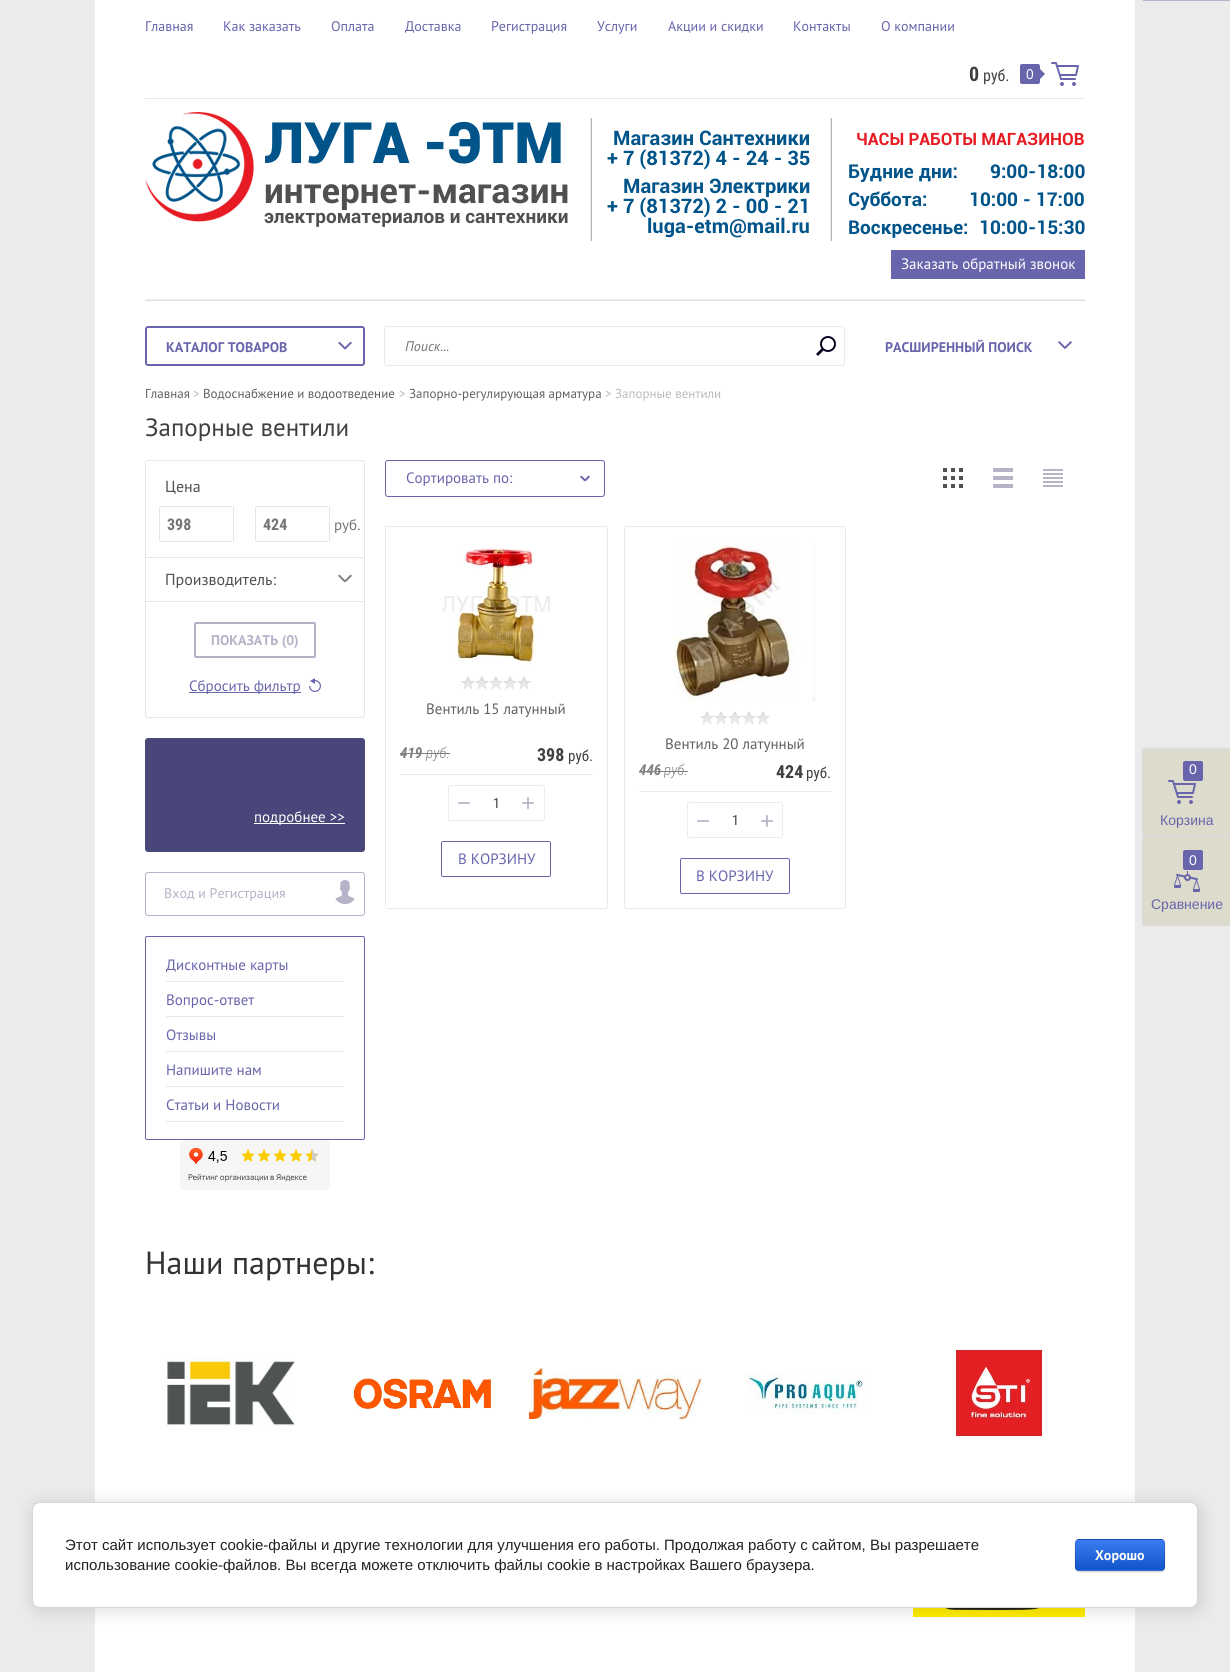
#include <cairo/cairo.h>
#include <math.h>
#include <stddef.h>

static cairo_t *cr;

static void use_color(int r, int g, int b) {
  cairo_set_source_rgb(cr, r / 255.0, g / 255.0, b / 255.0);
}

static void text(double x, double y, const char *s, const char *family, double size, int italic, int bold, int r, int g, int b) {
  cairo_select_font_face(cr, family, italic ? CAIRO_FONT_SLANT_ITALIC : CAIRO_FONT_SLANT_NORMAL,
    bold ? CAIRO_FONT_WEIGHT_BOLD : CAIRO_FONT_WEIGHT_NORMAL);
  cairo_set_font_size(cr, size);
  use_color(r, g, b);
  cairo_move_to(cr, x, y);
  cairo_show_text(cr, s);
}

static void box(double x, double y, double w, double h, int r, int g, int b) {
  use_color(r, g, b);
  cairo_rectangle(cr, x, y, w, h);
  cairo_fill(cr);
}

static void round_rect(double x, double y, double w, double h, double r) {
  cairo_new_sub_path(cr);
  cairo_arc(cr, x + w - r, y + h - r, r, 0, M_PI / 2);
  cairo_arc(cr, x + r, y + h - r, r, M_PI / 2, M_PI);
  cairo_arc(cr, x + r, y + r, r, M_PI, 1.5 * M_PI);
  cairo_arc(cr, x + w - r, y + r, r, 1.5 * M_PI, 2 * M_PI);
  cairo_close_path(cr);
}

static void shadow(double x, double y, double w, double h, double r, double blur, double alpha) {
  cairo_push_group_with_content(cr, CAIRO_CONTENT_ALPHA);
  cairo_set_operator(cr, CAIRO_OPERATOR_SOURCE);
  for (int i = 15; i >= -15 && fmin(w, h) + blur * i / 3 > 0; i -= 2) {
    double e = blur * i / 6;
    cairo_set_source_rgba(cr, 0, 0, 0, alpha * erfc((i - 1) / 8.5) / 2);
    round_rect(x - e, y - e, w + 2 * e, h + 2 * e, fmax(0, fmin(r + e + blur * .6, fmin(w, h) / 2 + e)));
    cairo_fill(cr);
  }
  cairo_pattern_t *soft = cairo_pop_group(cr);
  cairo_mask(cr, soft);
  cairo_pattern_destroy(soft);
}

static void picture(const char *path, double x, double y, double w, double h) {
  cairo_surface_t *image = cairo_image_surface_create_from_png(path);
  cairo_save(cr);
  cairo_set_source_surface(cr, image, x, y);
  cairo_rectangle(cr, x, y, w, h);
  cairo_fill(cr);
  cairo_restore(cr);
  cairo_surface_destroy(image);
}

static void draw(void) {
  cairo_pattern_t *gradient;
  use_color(235, 235, 235);
  cairo_paint(cr);
  box(95, 0, 1040, 1672, 255, 255, 255);
  box(145, 98, 940, 1, 229, 233, 234);
  use_color(104, 101, 172);
  round_rect(1020, 64, 20, 20, 2);
  cairo_fill(cr);
  cairo_new_path(cr);
  cairo_move_to(cr, 1040, 79);
  cairo_line_to(cr, 1040, 69);
  cairo_line_to(cr, 1045, 74);
  cairo_close_path(cr);
  cairo_fill(cr);
  picture("img_01.png", 1051, 62, 28, 24);
  box(145, 300, 940, 1, 219, 219, 219);
  picture("img_02.png", 145, 112, 109, 110);
  picture("img_03.png", 590, 118, 2, 123);
  picture("img_03.png", 830, 118, 2, 123);
  box(891, 250, 194, 29, 104, 101, 172);
  box(145, 299, 940, 1, 243, 243, 243);
  round_rect(146, 327, 218, 38, 2);
  use_color(104, 101, 172);
  cairo_stroke(cr);
  picture("img_04.png", 338, 342, 14, 8);
  round_rect(384.5, 326.5, 460, 39, 2.5);
  use_color(230, 234, 235);
  cairo_set_line_width(cr, 1);
  cairo_stroke(cr);
  picture("img_05.png", 816, 336, 20, 20);
  picture("img_06.png", 1058, 341, 14, 8);
  round_rect(145.5, 460.5, 219, 257, 2.5);
  use_color(230, 230, 230);
  cairo_stroke(cr);
  round_rect(159.5, 506.5, 74, 35, 1.5);
  use_color(229, 229, 229);
  cairo_stroke(cr);
  round_rect(255.5, 506.5, 74, 35, 1.5);
  cairo_stroke(cr);
  box(146, 557, 218, 1, 230, 230, 230);
  box(146, 601, 218, 1, 230, 230, 230);
  picture("img_07.png", 338, 574, 14, 8);
  round_rect(195, 623, 120, 34, 1);
  use_color(180, 179, 200);
  cairo_set_line_width(cr, 2);
  cairo_stroke(cr);
  picture("img_08.png", 309, 678, 12, 14);
  box(189, 692, 112, 1, 104, 101, 172);
  use_color(73, 71, 121);
  round_rect(145, 738, 220, 114, 3);
  cairo_fill(cr);
  box(254, 823, 91, 1, 255, 255, 255);
  round_rect(145.5, 872.5, 219, 43, 2.5);
  use_color(180, 179, 200);
  cairo_set_line_width(cr, 1);
  cairo_stroke(cr);
  picture("img_09.png", 335, 880, 20, 24);
  round_rect(145.5, 936.5, 219, 203, 1.5);
  use_color(104, 101, 172);
  cairo_stroke(cr);
  box(166, 981, 178, 1, 233, 232, 239);
  box(166, 1016, 178, 1, 233, 232, 239);
  box(166, 1051, 178, 1, 233, 232, 239);
  box(166, 1086, 178, 1, 233, 232, 239);
  box(166, 1121, 178, 1, 233, 232, 239);
  picture("img_10.png", 180, 1140, 150, 50);
  round_rect(385.5, 460.5, 219, 36, 2.5);
  use_color(104, 101, 172);
  cairo_stroke(cr);
  picture("img_11.png", 580, 475, 10, 6);
  box(943, 468, 20, 4, 80, 80, 80);
  box(943, 476, 20, 4, 80, 80, 80);
  box(943, 484, 20, 4, 80, 80, 80);
  box(947, 468, 4, 20, 255, 255, 255);
  box(955, 468, 4, 20, 255, 255, 255);
  box(993, 468, 20, 4, 180, 179, 200);
  box(993, 476, 20, 4, 180, 179, 200);
  box(993, 484, 20, 4, 180, 179, 200);
  box(1043, 469, 20, 2, 180, 179, 200);
  box(1043, 473, 20, 2, 180, 179, 200);
  box(1043, 477, 20, 2, 180, 179, 200);
  box(1043, 481, 20, 2, 180, 179, 200);
  box(1043, 485, 20, 2, 180, 179, 200);
  round_rect(385.5, 526.5, 222, 382, 2.5);
  use_color(234, 234, 234);
  cairo_stroke(cr);
  picture("img_12.png", 442, 548, 108, 117);
  picture("img_13.png", 461, 676, 70, 14);
  box(400, 774, 193, 1, 235, 235, 235);
  box(400, 753, 50, 1, 128, 128, 128);
  round_rect(448.5, 785.5, 96, 35, 1.5);
  use_color(235, 235, 241);
  cairo_stroke(cr);
  round_rect(441.5, 841.5, 109, 35, 1.5);
  use_color(104, 101, 172);
  cairo_stroke(cr);
  round_rect(624.5, 526.5, 221, 382, 2.5);
  use_color(234, 234, 234);
  cairo_stroke(cr);
  picture("img_14.png", 673, 541, 142, 160);
  picture("img_13.png", 700, 711, 70, 14);
  box(639, 791, 192, 1, 235, 235, 235);
  box(639, 771, 49, 1, 128, 128, 128);
  round_rect(687.5, 802.5, 95, 35, 1.5);
  use_color(235, 235, 241);
  cairo_stroke(cr);
  round_rect(680.5, 858.5, 109, 35, 1.5);
  use_color(104, 101, 172);
  cairo_stroke(cr);
  box(1143, 0, 87, 1, 180, 179, 200);
  use_color(0, 0, 0);
  shadow(1143, 749, 87, 87, 0, 0.5, 0.25);
  box(1143, 749, 87, 87, 221, 219, 204);
  picture("img_15.png", 1168, 780, 28, 24);
  use_color(104, 101, 172);
  round_rect(1183, 761, 20, 20, 2);
  cairo_fill(cr);
  use_color(0, 0, 0);
  shadow(1143, 838, 87, 87, 0, 0.5, 0.25);
  box(1143, 838, 87, 87, 221, 219, 204);
  picture("img_16.png", 1174, 871, 26, 21);
  use_color(104, 101, 172);
  round_rect(1183, 850, 20, 20, 2);
  cairo_fill(cr);
  picture("img_17.png", 167, 1358, 128, 68);
  picture("img_18.png", 353, 1378, 138, 31);
  picture("img_19.png", 529, 1368, 172, 51);
  picture("img_20.png", 747, 1371, 120, 43);
  picture("img_21.png", 955, 1349, 88, 88);
  picture("img_22.png", 913, 1608, 172, 9);
  use_color(0, 0, 0);
  shadow(34, 1504, 1166, 106, 8, 9, 0.14);
  use_color(255, 255, 255);
  round_rect(32.5, 1502.5, 1165, 105, 7.5);
  cairo_fill_preserve(cr);
  use_color(214, 214, 214);
  cairo_stroke(cr);
  use_color(0, 0, 0);
  shadow(1075, 1540, 90, 32, 4, 0.5, 0.2);
  cairo_save(cr);
  round_rect(1075, 1539, 90, 32, 4);
  cairo_clip(cr);
  gradient = cairo_pattern_create_linear(1120, 1510, 1120, 1540);
  cairo_pattern_add_color_stop_rgba(gradient, 0, 0.231, 0.486, 0.937, 1);
  cairo_pattern_add_color_stop_rgba(gradient, 1, 0.067, 0.333, 0.8, 1);
  cairo_set_source(cr, gradient);
  cairo_pattern_destroy(gradient);
  cairo_rectangle(cr, 1075, 1539, 90, 1);
  cairo_fill(cr);
  gradient = cairo_pattern_create_linear(1120, 1540, 1120, 1570);
  cairo_pattern_add_color_stop_rgba(gradient, 0, 0.231, 0.486, 0.937, 1);
  cairo_pattern_add_color_stop_rgba(gradient, 1, 0.067, 0.333, 0.8, 1);
  cairo_set_source(cr, gradient);
  cairo_pattern_destroy(gradient);
  cairo_rectangle(cr, 1075, 1540, 90, 30);
  cairo_fill(cr);
  gradient = cairo_pattern_create_linear(1120, 1570, 1120, 1600);
  cairo_pattern_add_color_stop_rgba(gradient, 0, 0.231, 0.486, 0.937, 1);
  cairo_pattern_add_color_stop_rgba(gradient, 1, 0.067, 0.333, 0.8, 1);
  cairo_set_source(cr, gradient);
  cairo_pattern_destroy(gradient);
  cairo_rectangle(cr, 1075, 1570, 90, 1);
  cairo_fill(cr);
  cairo_restore(cr);
  round_rect(1075.5, 1539.5, 89, 31, 3.5);
  cairo_set_source_rgba(cr, 0, 0, 0, 0.1);
  cairo_stroke(cr);
  text(145, 31, "Главная", "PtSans", 14, 0, 0, 104, 101, 172);
  text(223, 31, "Как заказать", "PtSans", 14, 0, 0, 104, 101, 172);
  text(331, 31, "Оплата", "PtSans", 14, 0, 0, 104, 101, 172);
  text(405, 31, "Доставка", "PtSans", 14, 0, 0, 104, 101, 172);
  text(491, 31, "Регистрация", "PtSans", 14, 0, 0, 104, 101, 172);
  text(597, 31, "Услуги", "PtSans", 14, 0, 0, 104, 101, 172);
  text(668, 31, "Акции и скидки", "PtSans", 14, 0, 0, 104, 101, 172);
  text(793, 31, "Контакты", "PtSans", 14, 0, 0, 104, 101, 172);
  text(881, 31, "О компании", "PtSans", 14, 0, 0, 104, 101, 172);
  text(969, 81, "0", "Roboto Condensed", 20, 0, 1, 64, 64, 64);
  text(983, 81, "руб.", "Roboto Condensed", 16, 0, 0, 64, 64, 64);
  text(1026, 79, "0", "PtSans", 14, 0, 0, 255, 255, 255);
  text(264, 163, "ЛУГА -ЭТМ", "Roboto Black", 57, 0, 0, 0, 84, 137);
  text(264, 203, "интернет-магазин", "Roboto", 35, 0, 1, 80, 80, 80);
  text(264, 223, "электроматериалов и сантехники", "Roboto", 19, 0, 1, 80, 80, 80);
  text(613, 145, "Магазин Сантехники", "Roboto", 20, 0, 1, 0, 84, 137);
  text(607, 165, "+ 7 (81372) 4 - 24 - 35", "Roboto", 20, 0, 1, 0, 84, 137);
  text(623, 193, "Магазин Электрики", "Roboto", 20, 0, 1, 0, 84, 137);
  text(607, 213, "+ 7 (81372) 2 - 00 - 21", "Roboto", 20, 0, 1, 0, 84, 137);
  text(647, 233, "luga-etm@mail.ru", "Roboto", 20, 0, 1, 0, 84, 137);
  text(856, 145, "ЧАСЫ РАБОТЫ МАГАЗИНОВ", "Roboto", 17, 0, 1, 230, 27, 35);
  text(848, 178, "Будние дни:", "Roboto", 19, 0, 1, 0, 84, 137);
  text(990, 178, "9:00-18:00", "Roboto", 19, 0, 1, 0, 84, 137);
  text(848, 206, "Суббота:", "Roboto", 19, 0, 1, 0, 84, 137);
  text(969, 206, "10:00 - 17:00", "Roboto", 19, 0, 1, 0, 84, 137);
  text(848, 234, "Воскресенье:", "Roboto", 19, 0, 1, 0, 84, 137);
  text(979, 234, "10:00-15:30", "Roboto", 19, 0, 1, 0, 84, 137);
  text(901, 269, "Заказать обратный звонок", "PtSans", 15, 0, 0, 255, 255, 255);
  text(166, 352, "КАТАЛОГ ТОВАРОВ", "PtSans", 14, 0, 1, 104, 101, 172);
  text(405, 351, "Поиск...", "PtSans", 14, 1, 0, 117, 117, 117);
  text(885, 352, "РАСШИРЕННЫЙ ПОИСК", "PtSans", 14, 0, 1, 104, 101, 172);
  text(145, 398, "Главная", "PtSans", 13, 0, 0, 96, 96, 96);
  text(193, 398, ">", "PtSans", 13, 0, 0, 186, 186, 186);
  text(203, 398, "Водоснабжение и водоотведение", "PtSans", 13, 0, 0, 96, 96, 96);
  text(399, 398, ">", "PtSans", 13, 0, 0, 186, 186, 186);
  text(409, 398, "Запорно-регулирующая арматура", "PtSans", 13, 0, 0, 96, 96, 96);
  text(605, 398, "> Запорные вентили", "PtSans", 13, 0, 0, 186, 186, 186);
  text(145, 436, "Запорные вентили", "PtSans", 25, 0, 0, 64, 64, 64);
  text(165, 492, "Цена", "PtSans", 16, 0, 0, 80, 80, 80);
  text(167, 530, "398", "Roboto Condensed", 16, 0, 1, 117, 117, 117);
  text(263, 530, "424", "Roboto Condensed", 16, 0, 1, 117, 117, 117);
  text(334, 530, "руб.", "PtSans", 15, 0, 0, 117, 117, 117);
  text(165, 585, "Производитель:", "PtSans", 16, 0, 0, 80, 80, 80);
  text(211, 645, "ПОКАЗАТЬ (0", "PtSans", 14, 0, 1, 180, 179, 200);
  text(294, 645, ")", "PtSans", 14, 0, 1, 180, 179, 200);
  text(189, 691, "Сбросить фильтр", "PtSans", 15, 0, 0, 104, 101, 172);
  text(254, 822, "подробнее >>", "PtSans", 15, 0, 0, 255, 255, 255);
  text(164, 898, "Вход и Регистрация", "PtSans", 14, 0, 0, 180, 179, 200);
  text(166, 970, "Дисконтные карты", "PtSans", 15, 0, 0, 104, 101, 172);
  text(166, 1005, "Вопрос-ответ", "PtSans", 15, 0, 0, 104, 101, 172);
  text(166, 1040, "Отзывы", "PtSans", 15, 0, 0, 104, 101, 172);
  text(166, 1075, "Напишите нам", "PtSans", 15, 0, 0, 104, 101, 172);
  text(166, 1110, "Статьи и Новости", "PtSans", 15, 0, 0, 104, 101, 172);
  text(406, 483, "Сортировать по:", "PtSans", 15, 0, 0, 104, 101, 172);
  text(426, 714, "Вентиль 15 латунный", "PtSans", 15, 0, 0, 96, 96, 96);
  text(400, 758, "419", "Roboto Condensed", 15, 1, 1, 128, 128, 128);
  text(426, 758, "руб.", "Roboto Condensed Light", 15, 1, 0, 128, 128, 128);
  text(537, 761, "398", "Roboto Condensed", 18, 0, 1, 64, 64, 64);
  text(568, 761, "руб.", "Roboto Condensed", 15, 0, 0, 64, 64, 64);
  text(457, 811, "−", "Liberation Sans", 24, 0, 0, 180, 179, 200);
  text(493, 808, "1", "Roboto Condensed", 14, 0, 0, 64, 64, 64);
  text(521, 811, "+", "Liberation Sans", 24, 0, 0, 180, 179, 200);
  text(458, 864, "В КОРЗИНУ", "PtSans", 15, 0, 0, 104, 101, 172);
  text(665, 749, "Вентиль 20 латунный", "PtSans", 15, 0, 0, 96, 96, 96);
  text(639, 775, "446", "Roboto Condensed", 15, 1, 1, 128, 128, 128);
  text(664, 775, "руб.", "Roboto Condensed Light", 15, 1, 0, 128, 128, 128);
  text(776, 778, "424", "Roboto Condensed", 18, 0, 1, 64, 64, 64);
  text(806, 778, "руб.", "Roboto Condensed", 15, 0, 0, 64, 64, 64);
  text(696, 829, "−", "Liberation Sans", 24, 0, 0, 180, 179, 200);
  text(732, 825, "1", "Roboto Condensed", 14, 0, 0, 64, 64, 64);
  text(760, 829, "+", "Liberation Sans", 24, 0, 0, 180, 179, 200);
  text(696, 881, "В КОРЗИНУ", "PtSans", 15, 0, 0, 104, 101, 172);
  text(1189, 774, "0", "Liberation Sans", 14, 0, 0, 255, 255, 255);
  text(1160, 825, "Корзина", "Liberation Sans", 14, 0, 0, 104, 101, 172);
  text(1189, 865, "0", "Liberation Sans", 14, 0, 0, 255, 255, 255);
  text(1151, 909, "Сравнение", "Liberation Sans", 14, 0, 0, 104, 101, 172);
  text(145, 1274, "Наши партнеры:", "PtSans", 32, 0, 0, 51, 51, 51);
  text(65, 1550, "Этот сайт использует cookie-файлы и другие технологии для улучшения его работы. Продолжая работу с сайтом, Вы разрешаете", "Liberation Sans", 15, 0, 0, 33, 33, 33);
  text(65, 1570, "использование cookie-файлов. Вы всегда можете отключить файлы cookie в настройках Вашего браузера.", "Liberation Sans", 15, 0, 0, 33, 33, 33);
  text(1095, 1560, "Хорошо", "PtSans", 14, 0, 1, 255, 255, 255);
}

int main(void) {
  cairo_surface_t *surface = cairo_image_surface_create(CAIRO_FORMAT_RGB24, 1230, 1672);
  cr = cairo_create(surface);
  cairo_font_options_t *options = cairo_font_options_create();
  cairo_font_options_set_hint_metrics(options, CAIRO_HINT_METRICS_OFF);
  cairo_font_options_set_hint_style(options, CAIRO_HINT_STYLE_NONE);
  cairo_set_font_options(cr, options);
  cairo_set_miter_limit(cr, 4);
  draw();
  cairo_surface_write_to_png(surface, "out.png");
  cairo_font_options_destroy(options);
  cairo_destroy(cr);
  cairo_surface_destroy(surface);
  return 0;
}
